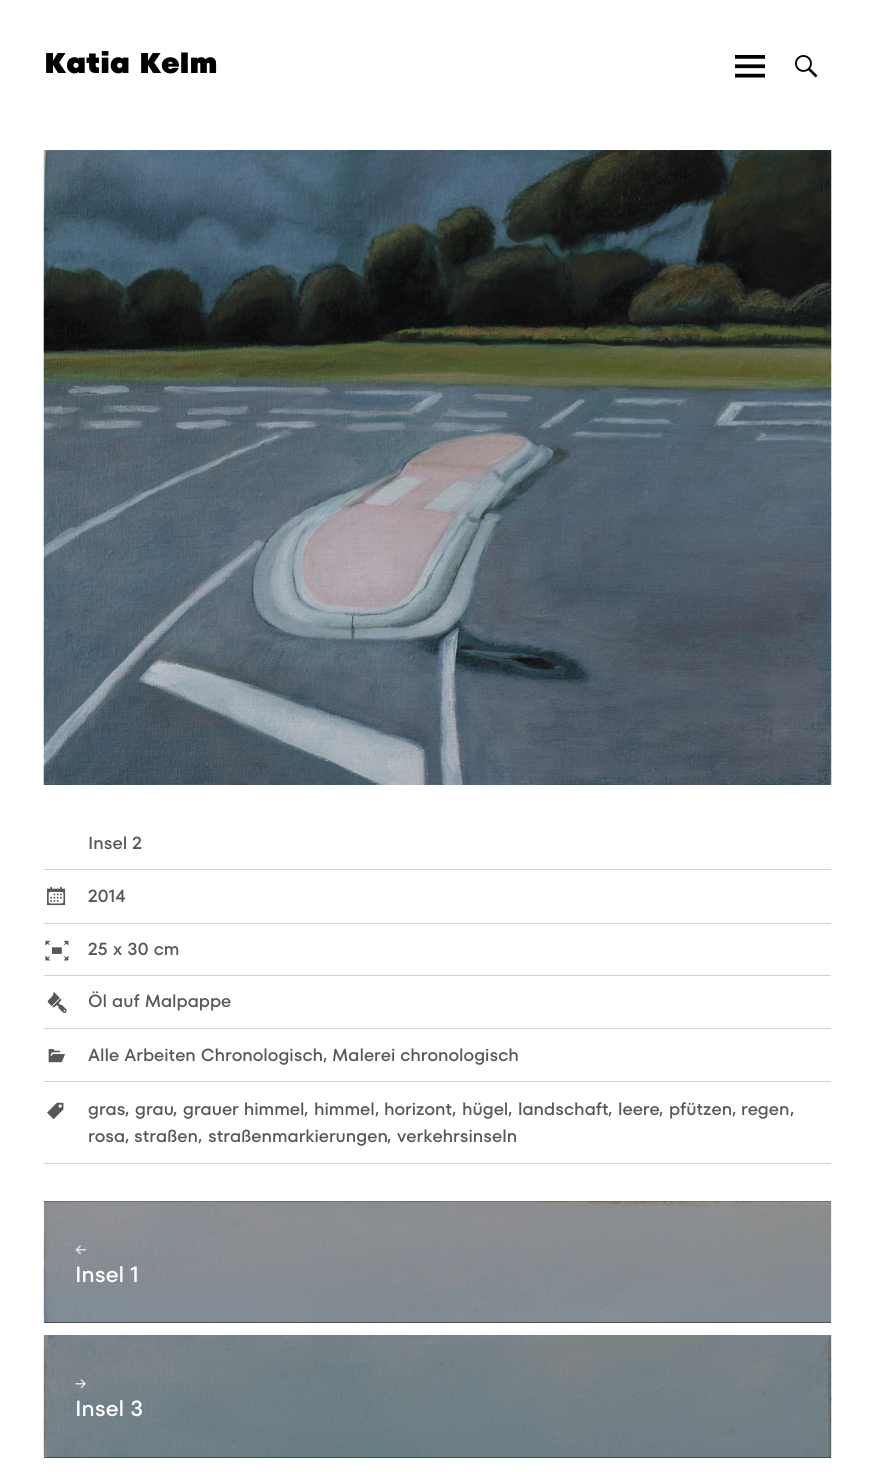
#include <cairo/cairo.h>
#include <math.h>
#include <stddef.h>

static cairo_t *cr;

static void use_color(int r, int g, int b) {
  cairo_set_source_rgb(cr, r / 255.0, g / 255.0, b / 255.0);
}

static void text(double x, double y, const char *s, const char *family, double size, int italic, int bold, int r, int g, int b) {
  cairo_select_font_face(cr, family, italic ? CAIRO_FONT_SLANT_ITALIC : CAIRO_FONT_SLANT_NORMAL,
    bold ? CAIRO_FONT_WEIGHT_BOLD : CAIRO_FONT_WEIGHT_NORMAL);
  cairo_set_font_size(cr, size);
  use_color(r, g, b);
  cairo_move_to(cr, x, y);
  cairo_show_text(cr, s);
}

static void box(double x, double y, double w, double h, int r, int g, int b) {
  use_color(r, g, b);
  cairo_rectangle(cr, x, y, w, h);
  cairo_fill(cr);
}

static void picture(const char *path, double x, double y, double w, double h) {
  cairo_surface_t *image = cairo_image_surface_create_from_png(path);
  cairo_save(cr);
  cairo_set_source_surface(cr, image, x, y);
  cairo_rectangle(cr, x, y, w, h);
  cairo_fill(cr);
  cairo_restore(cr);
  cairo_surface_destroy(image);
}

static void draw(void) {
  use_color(255, 255, 255);
  cairo_paint(cr);
  picture("img_01.png", 735, 55, 30, 23);
  picture("img_02.png", 795, 55, 23, 23);
  picture("img_03.png", 43, 150, 789, 635);
  box(44, 869, 787, 1, 211, 208, 208);
  box(44, 923, 787, 1, 211, 208, 208);
  picture("img_04.png", 47, 887, 19, 19);
  box(44, 975, 787, 1, 211, 208, 208);
  picture("img_05.png", 45, 940, 24, 21);
  box(44, 1028, 787, 1, 211, 208, 208);
  picture("img_06.png", 47, 991, 20, 22);
  box(44, 1081, 787, 1, 211, 208, 208);
  picture("img_07.png", 48, 1049, 17, 14);
  box(44, 1163, 787, 1, 211, 208, 208);
  picture("img_08.png", 47, 1102, 17, 18);
  box(44, 1201, 787, 122, 20, 20, 20);
  picture("img_09.png", 43, 1201, 789, 122);
  box(44, 1457, 787, 1, 20, 20, 20);
  picture("img_10.png", 43, 1335, 789, 123);
  text(44, 73, "Katia Kelm", "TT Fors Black", 28.5, 0, 0, 0, 0, 0);
  text(88, 849, "Insel 2", "TT Fors Medium", 17.5, 0, 0, 87, 87, 87);
  text(88, 902, "2014", "TT Fors Medium", 17.5, 0, 0, 87, 87, 87);
  text(88, 955, "25 x 30 cm", "TT Fors Medium", 17.5, 0, 0, 87, 87, 87);
  text(88, 1007, "Öl auf Malpappe", "TT Fors Medium", 17.5, 0, 0, 87, 87, 87);
  text(88, 1061, "Alle Arbeiten Chronologisch", "TT Fors Medium", 17.5, 0, 0, 87, 87, 87);
  text(323, 1060, ",", "TT Fors Medium", 17.5, 0, 0, 87, 87, 87);
  text(332, 1061, "Malerei chronologisch", "TT Fors Medium", 17.5, 0, 0, 87, 87, 87);
  text(88, 1115, "gras", "TT Fors Medium", 17.5, 0, 0, 87, 87, 87);
  text(125, 1114, ",", "TT Fors Medium", 17.5, 0, 0, 87, 87, 87);
  text(135, 1115, "grau", "TT Fors Medium", 17.5, 0, 0, 87, 87, 87);
  text(173, 1114, ",", "TT Fors Medium", 17.5, 0, 0, 87, 87, 87);
  text(183, 1115, "grauer himmel", "TT Fors Medium", 17.5, 0, 0, 87, 87, 87);
  text(304, 1114, ",", "TT Fors Medium", 17.5, 0, 0, 87, 87, 87);
  text(314, 1115, "himmel", "TT Fors Medium", 17.5, 0, 0, 87, 87, 87);
  text(375, 1114, ",", "TT Fors Medium", 17.5, 0, 0, 87, 87, 87);
  text(384, 1115, "horizont", "TT Fors Medium", 17.5, 0, 0, 87, 87, 87);
  text(452, 1114, ",", "TT Fors Medium", 17.5, 0, 0, 87, 87, 87);
  text(462, 1115, "hügel", "TT Fors Medium", 17.5, 0, 0, 87, 87, 87);
  text(508, 1114, ",", "TT Fors Medium", 17.5, 0, 0, 87, 87, 87);
  text(518, 1115, "landschaft", "TT Fors Medium", 17.5, 0, 0, 87, 87, 87);
  text(608, 1114, ",", "TT Fors Medium", 17.5, 0, 0, 87, 87, 87);
  text(618, 1115, "leere", "TT Fors Medium", 17.5, 0, 0, 87, 87, 87);
  text(659, 1114, ",", "TT Fors Medium", 17.5, 0, 0, 87, 87, 87);
  text(669, 1115, "pfützen", "TT Fors Medium", 17.5, 0, 0, 87, 87, 87);
  text(732, 1114, ",", "TT Fors Medium", 17.5, 0, 0, 87, 87, 87);
  text(741, 1115, "regen", "TT Fors Medium", 17.5, 0, 0, 87, 87, 87);
  text(790, 1114, ",", "TT Fors Medium", 17.5, 0, 0, 87, 87, 87);
  text(88, 1142, "rosa", "TT Fors Medium", 17.5, 0, 0, 87, 87, 87);
  text(125, 1141, ",", "TT Fors Medium", 17.5, 0, 0, 87, 87, 87);
  text(134, 1142, "straßen", "TT Fors Medium", 17.5, 0, 0, 87, 87, 87);
  text(198, 1141, ",", "TT Fors Medium", 17.5, 0, 0, 87, 87, 87);
  text(208, 1142, "straßenmarkierungen", "TT Fors Medium", 17.5, 0, 0, 87, 87, 87);
  text(387, 1141, ",", "TT Fors Medium", 17.5, 0, 0, 87, 87, 87);
  text(397, 1142, "verkehrsinseln", "TT Fors Medium", 17.5, 0, 0, 87, 87, 87);
  text(75, 1255, "←", "TT Fors Medium", 15, 0, 0, 225, 227, 228);
  text(75, 1282, "Insel 1", "TT Fors Medium", 22, 0, 0, 255, 255, 255);
  text(75, 1389, "→", "TT Fors Medium", 15, 0, 0, 225, 227, 228);
  text(75, 1416, "Insel 3", "TT Fors Medium", 22, 0, 0, 255, 255, 255);
}

int main(void) {
  cairo_surface_t *surface = cairo_image_surface_create(CAIRO_FORMAT_RGB24, 875, 1472);
  cr = cairo_create(surface);
  cairo_font_options_t *options = cairo_font_options_create();
  cairo_font_options_set_hint_metrics(options, CAIRO_HINT_METRICS_OFF);
  cairo_font_options_set_hint_style(options, CAIRO_HINT_STYLE_NONE);
  cairo_set_font_options(cr, options);
  cairo_set_miter_limit(cr, 4);
  draw();
  cairo_surface_write_to_png(surface, "out.png");
  cairo_font_options_destroy(options);
  cairo_destroy(cr);
  cairo_surface_destroy(surface);
  return 0;
}
